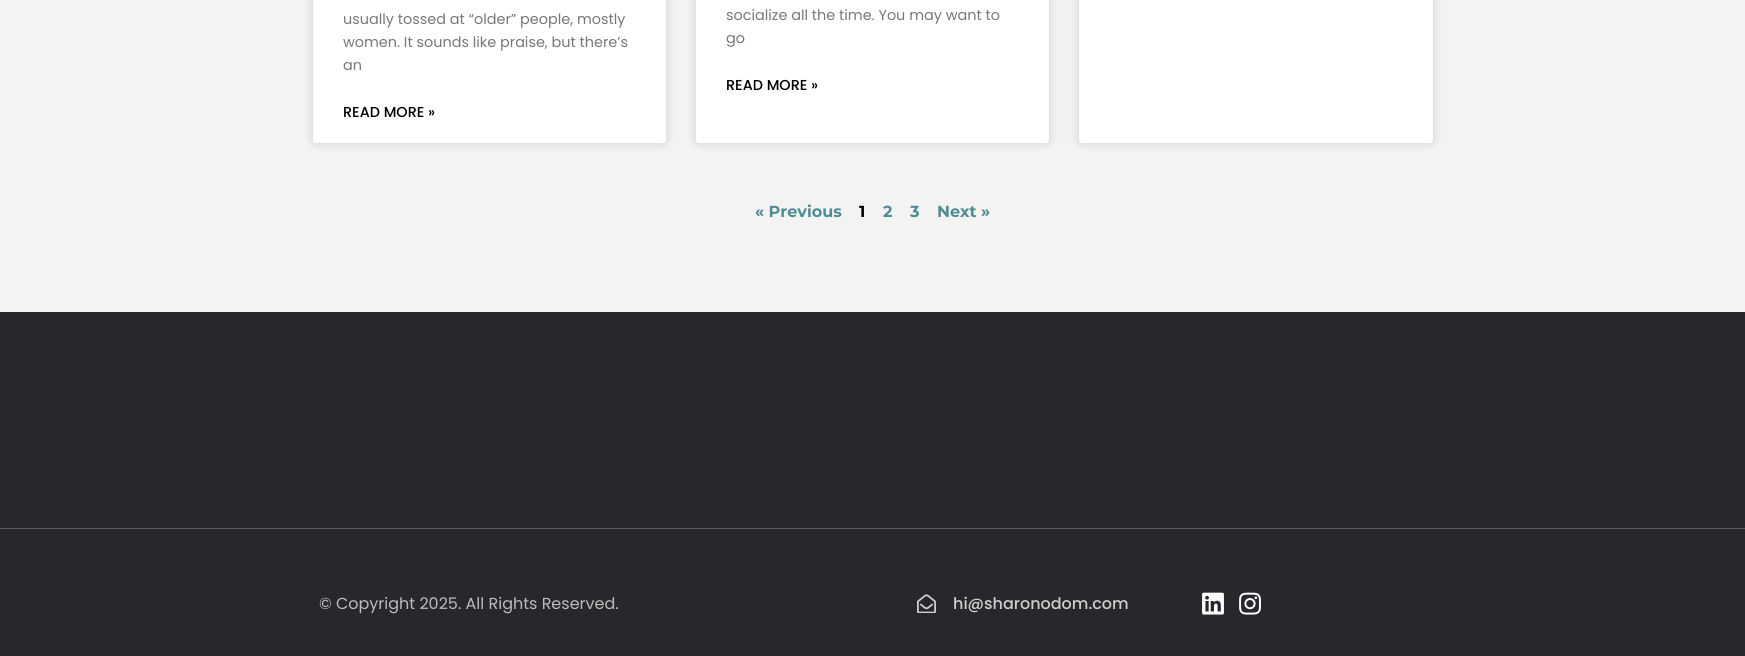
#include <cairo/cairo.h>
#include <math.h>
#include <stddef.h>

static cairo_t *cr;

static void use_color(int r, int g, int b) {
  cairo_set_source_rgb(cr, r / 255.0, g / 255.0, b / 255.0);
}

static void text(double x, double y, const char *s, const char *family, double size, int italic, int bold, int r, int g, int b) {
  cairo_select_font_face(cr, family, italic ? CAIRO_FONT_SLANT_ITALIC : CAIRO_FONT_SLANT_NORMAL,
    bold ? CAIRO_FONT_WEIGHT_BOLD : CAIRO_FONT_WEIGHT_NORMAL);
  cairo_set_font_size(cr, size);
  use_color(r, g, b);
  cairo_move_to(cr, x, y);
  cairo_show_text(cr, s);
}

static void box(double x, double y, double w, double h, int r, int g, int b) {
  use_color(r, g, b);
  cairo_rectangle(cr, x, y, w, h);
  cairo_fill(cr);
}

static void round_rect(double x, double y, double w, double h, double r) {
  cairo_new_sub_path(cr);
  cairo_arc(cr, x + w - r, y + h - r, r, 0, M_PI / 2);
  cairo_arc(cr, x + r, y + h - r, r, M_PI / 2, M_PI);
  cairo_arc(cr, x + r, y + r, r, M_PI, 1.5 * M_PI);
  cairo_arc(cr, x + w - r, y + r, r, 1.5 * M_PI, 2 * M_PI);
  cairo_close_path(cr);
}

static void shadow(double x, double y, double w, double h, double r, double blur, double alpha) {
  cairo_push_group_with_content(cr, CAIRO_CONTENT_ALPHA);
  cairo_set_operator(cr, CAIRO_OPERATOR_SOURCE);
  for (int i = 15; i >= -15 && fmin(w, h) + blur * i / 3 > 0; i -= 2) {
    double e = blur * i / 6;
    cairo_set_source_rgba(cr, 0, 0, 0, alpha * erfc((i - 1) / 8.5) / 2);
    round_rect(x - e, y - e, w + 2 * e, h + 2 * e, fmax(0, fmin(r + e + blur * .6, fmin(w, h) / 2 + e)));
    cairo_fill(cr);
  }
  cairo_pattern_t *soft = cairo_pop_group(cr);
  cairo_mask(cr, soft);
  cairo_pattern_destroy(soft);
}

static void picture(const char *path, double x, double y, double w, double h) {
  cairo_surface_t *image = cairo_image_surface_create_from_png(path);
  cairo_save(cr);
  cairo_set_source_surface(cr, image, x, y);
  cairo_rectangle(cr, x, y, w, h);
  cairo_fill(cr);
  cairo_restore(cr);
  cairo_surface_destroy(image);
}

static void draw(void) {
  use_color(243, 243, 243);
  cairo_paint(cr);
  use_color(0, 0, 0);
  shadow(313, -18, 353, 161, 3, 5, 0.15);
  use_color(255, 255, 255);
  round_rect(313, -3, 353, 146, 3);
  cairo_fill(cr);
  use_color(0, 0, 0);
  shadow(696, -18, 353, 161, 3, 5, 0.15);
  use_color(255, 255, 255);
  round_rect(696, -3, 353, 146, 3);
  cairo_fill(cr);
  use_color(0, 0, 0);
  shadow(1079, -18, 354, 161, 3, 5, 0.15);
  use_color(255, 255, 255);
  round_rect(1079, -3, 354, 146, 3);
  cairo_fill(cr);
  box(0, 312, 1745, 216, 40, 39, 44);
  box(0, 529, 1745, 127, 40, 39, 44);
  box(0, 528, 1745, 1, 92, 92, 93);
  picture("img_01.png", 917, 594, 19, 19);
  picture("img_02.png", 1202, 592, 22, 23);
  picture("img_03.png", 1239, 592, 22, 23);
  text(343, 24, "usually tossed at “older” people, mostly", "Poppins", 14.4, 0, 0, 119, 119, 119);
  text(343, 47, "women. It sounds like praise, but there’s", "Poppins", 14.4, 0, 0, 119, 119, 119);
  text(343, 70, "an", "Poppins", 14.4, 0, 0, 119, 119, 119);
  text(343, 117, "READ MORE »", "Poppins Medium", 14.4, 0, 0, 0, 0, 0);
  text(726, 20, "socialize all the time. You may want to", "Poppins", 14.4, 0, 0, 119, 119, 119);
  text(726, 43, "go", "Poppins", 14.4, 0, 0, 119, 119, 119);
  text(726, 90, "READ MORE »", "Poppins Medium", 14.4, 0, 0, 0, 0, 0);
  text(755, 217, "« Previous", "Montserrat", 16, 0, 1, 79, 140, 149);
  text(859, 217, "1", "Montserrat", 16, 0, 1, 0, 0, 0);
  text(883, 217, "2", "Montserrat", 16, 0, 1, 79, 140, 149);
  text(910, 217, "3", "Montserrat", 16, 0, 1, 79, 140, 149);
  text(937, 217, "Next »", "Montserrat", 16, 0, 1, 79, 140, 149);
  text(319, 609, "© Copyright 2025. All Rights Reserved.", "Poppins", 16, 0, 0, 188, 188, 188);
  text(953, 609, "hi@sharonodom.com", "Poppins Medium", 16, 0, 0, 206, 206, 206);
}

int main(void) {
  cairo_surface_t *surface = cairo_image_surface_create(CAIRO_FORMAT_RGB24, 1745, 656);
  cr = cairo_create(surface);
  cairo_font_options_t *options = cairo_font_options_create();
  cairo_font_options_set_hint_metrics(options, CAIRO_HINT_METRICS_OFF);
  cairo_font_options_set_hint_style(options, CAIRO_HINT_STYLE_NONE);
  cairo_set_font_options(cr, options);
  cairo_set_miter_limit(cr, 4);
  draw();
  cairo_surface_write_to_png(surface, "out.png");
  cairo_font_options_destroy(options);
  cairo_destroy(cr);
  cairo_surface_destroy(surface);
  return 0;
}
